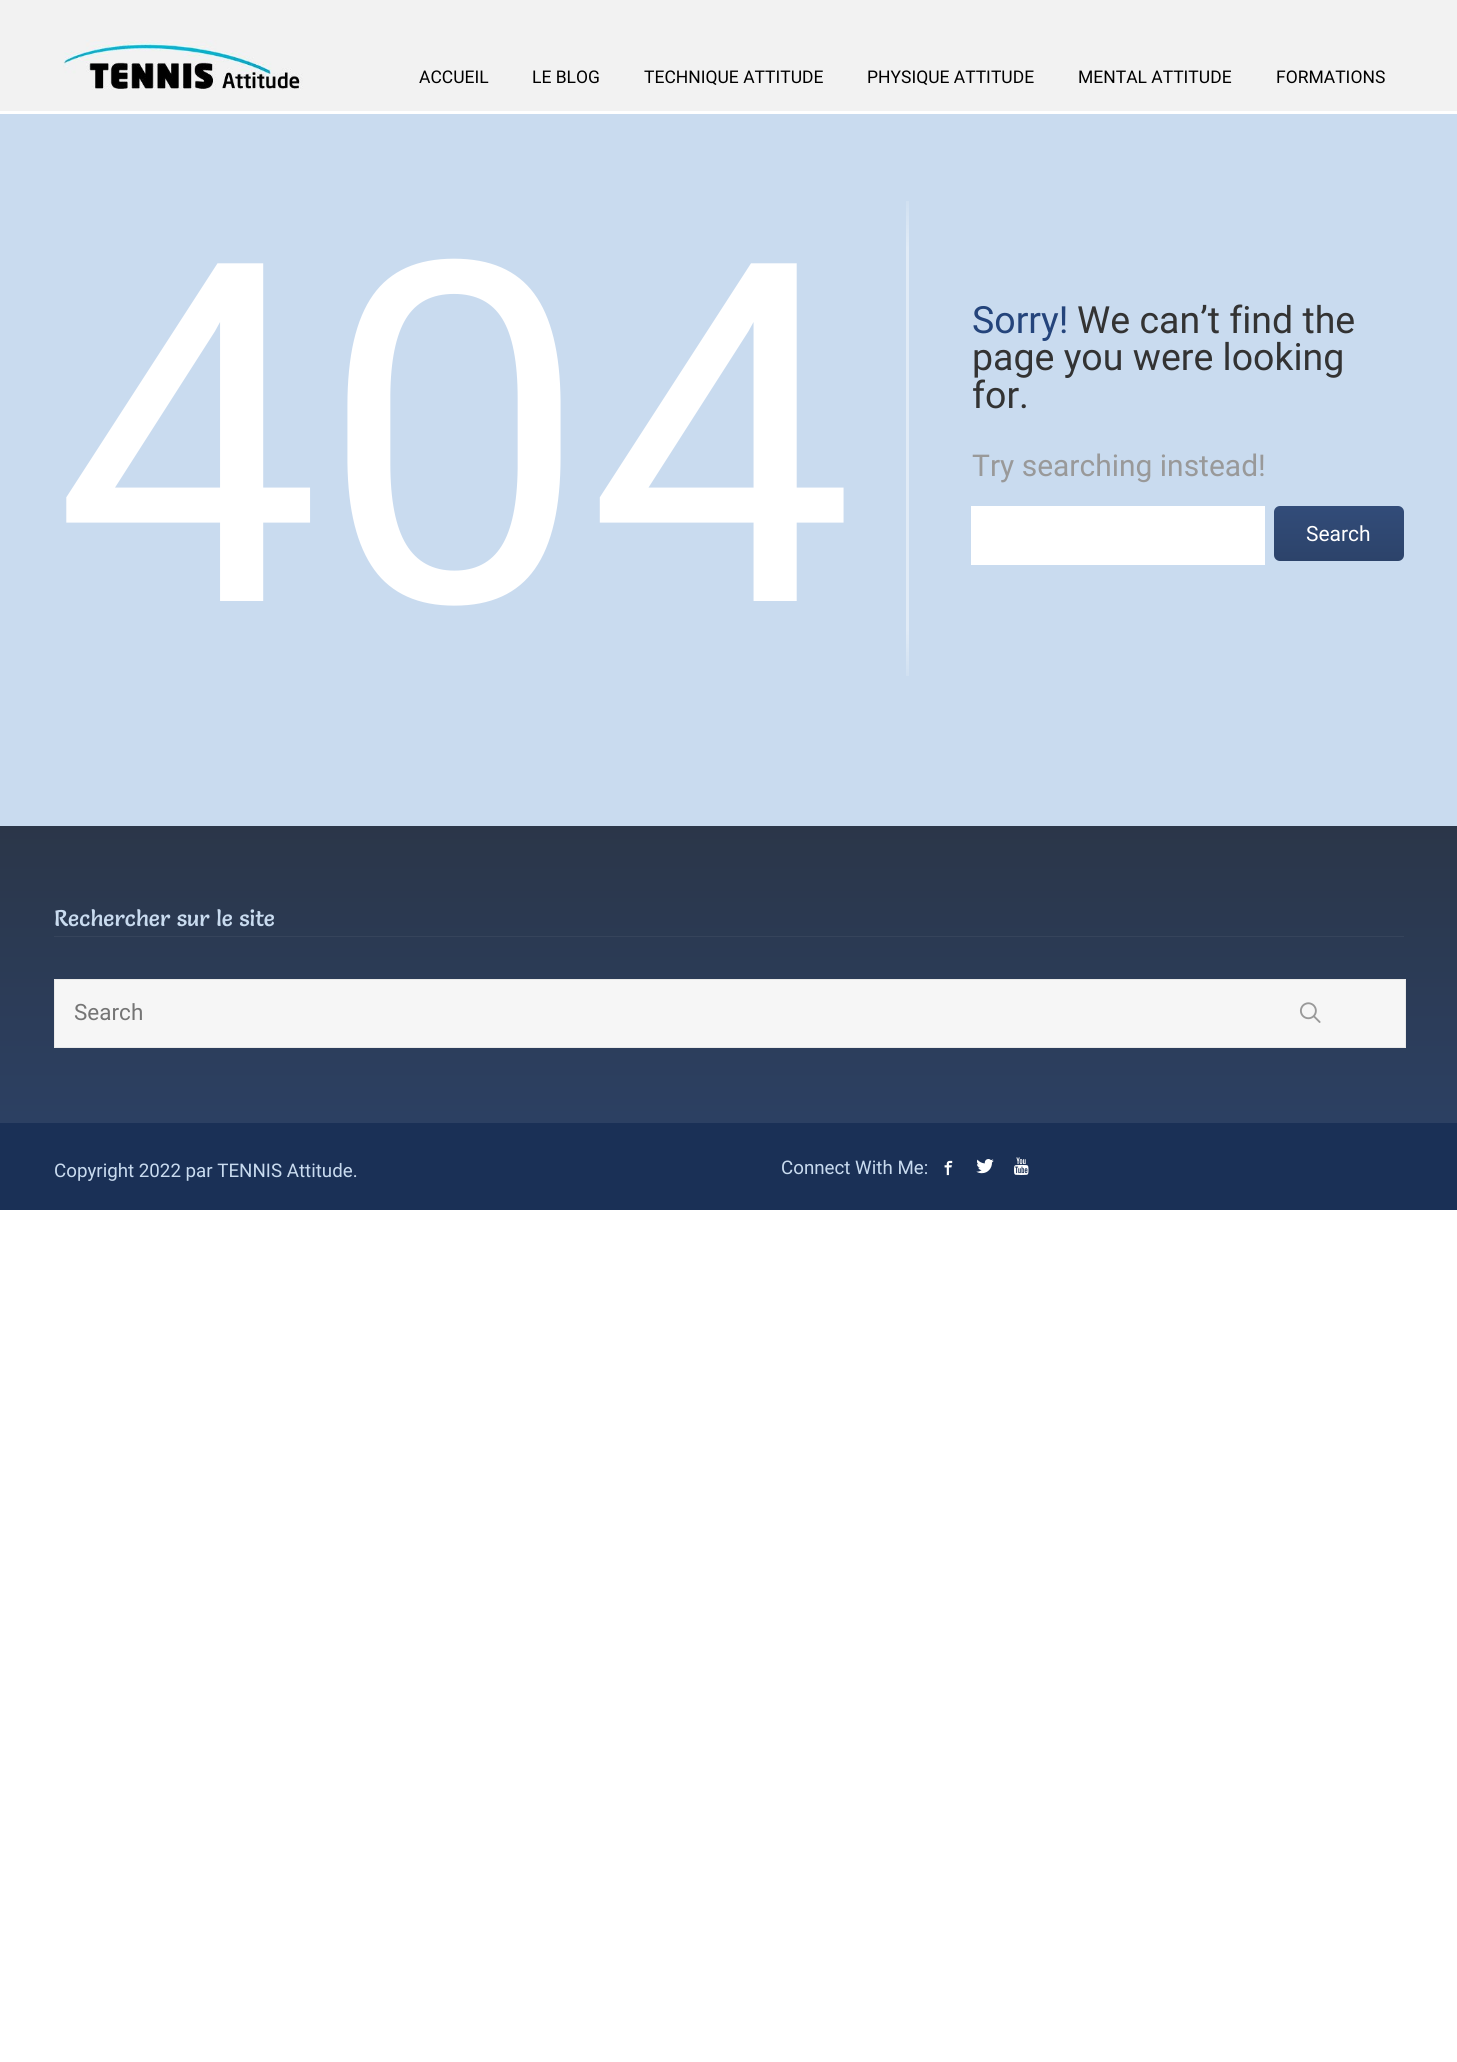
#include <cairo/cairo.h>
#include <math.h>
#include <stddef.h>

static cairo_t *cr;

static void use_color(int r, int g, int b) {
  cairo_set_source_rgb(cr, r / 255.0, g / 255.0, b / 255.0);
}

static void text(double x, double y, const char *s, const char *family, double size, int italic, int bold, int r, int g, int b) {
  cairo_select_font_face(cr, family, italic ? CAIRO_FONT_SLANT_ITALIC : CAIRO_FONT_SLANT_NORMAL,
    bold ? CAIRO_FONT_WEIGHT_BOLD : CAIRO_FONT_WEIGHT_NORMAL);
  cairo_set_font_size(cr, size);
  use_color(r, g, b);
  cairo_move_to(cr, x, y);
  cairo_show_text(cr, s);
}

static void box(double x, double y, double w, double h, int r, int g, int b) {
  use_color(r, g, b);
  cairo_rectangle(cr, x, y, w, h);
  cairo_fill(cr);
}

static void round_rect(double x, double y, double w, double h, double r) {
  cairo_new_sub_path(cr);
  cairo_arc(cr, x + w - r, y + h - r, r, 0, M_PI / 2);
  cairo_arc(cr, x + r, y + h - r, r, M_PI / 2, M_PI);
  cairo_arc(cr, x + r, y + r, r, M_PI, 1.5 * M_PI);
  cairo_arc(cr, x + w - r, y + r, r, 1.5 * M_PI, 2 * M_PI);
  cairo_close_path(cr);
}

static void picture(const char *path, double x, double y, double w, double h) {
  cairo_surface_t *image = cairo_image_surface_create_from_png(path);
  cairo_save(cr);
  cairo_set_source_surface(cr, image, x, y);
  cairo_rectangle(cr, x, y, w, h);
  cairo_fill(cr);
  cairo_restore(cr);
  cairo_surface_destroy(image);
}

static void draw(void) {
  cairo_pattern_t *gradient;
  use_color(255, 255, 255);
  cairo_paint(cr);
  box(0, 0, 1457, 111, 242, 242, 242);
  picture("img_01.png", 63, 40, 240, 50);
  box(0, 114, 1457, 712, 201, 219, 239);
  gradient = cairo_pattern_create_linear(908, 201, 908, 676);
  cairo_pattern_add_color_stop_rgba(gradient, 0, 0.816, 0.878, 0.945, 1);
  cairo_pattern_add_color_stop_rgba(gradient, 0.1, 0.882, 0.922, 0.965, 1);
  cairo_pattern_add_color_stop_rgba(gradient, 0.9, 0.882, 0.922, 0.965, 1);
  cairo_pattern_add_color_stop_rgba(gradient, 1, 0.816, 0.878, 0.945, 1);
  cairo_set_source(cr, gradient);
  cairo_pattern_destroy(gradient);
  cairo_rectangle(cr, 906, 201, 3, 475);
  cairo_fill(cr);
  box(971, 506, 294, 59, 255, 255, 255);
  gradient = cairo_pattern_create_linear(1339, 506, 1339, 561);
  cairo_pattern_add_color_stop_rgba(gradient, 0, 0.196, 0.298, 0.475, 1);
  cairo_pattern_add_color_stop_rgba(gradient, 1, 0.173, 0.263, 0.416, 1);
  cairo_set_source(cr, gradient);
  cairo_pattern_destroy(gradient);
  round_rect(1274, 506, 130, 55, 6);
  cairo_fill(cr);
  gradient = cairo_pattern_create_linear(729, 826, 729, 1210);
  cairo_pattern_add_color_stop_rgba(gradient, 0, 0.169, 0.212, 0.286, 1);
  cairo_pattern_add_color_stop_rgba(gradient, 1, 0.173, 0.263, 0.416, 1);
  cairo_set_source(cr, gradient);
  cairo_pattern_destroy(gradient);
  cairo_rectangle(cr, 0, 826, 1457, 297);
  cairo_fill(cr);
  box(54, 936, 1350, 1, 54, 68, 91);
  use_color(246, 246, 246);
  cairo_rectangle(cr, 54.5, 979.5, 1351, 68);
  cairo_fill_preserve(cr);
  use_color(233, 233, 233);
  cairo_set_line_width(cr, 1);
  cairo_stroke(cr);
  box(0, 1123, 1457, 87, 26, 48, 86);
  picture("img_02.png", 976, 1159, 18, 15);
  picture("img_03.png", 1014, 1157, 15, 18);
  text(419, 83, "ACCUEIL", "Roboto", 17.5, 0, 0, 0, 0, 0);
  text(532, 83, "LE BLOG", "Roboto", 17.5, 0, 0, 0, 0, 0);
  text(644, 83, "TECHNIQUE ATTITUDE", "Roboto", 17.5, 0, 0, 0, 0, 0);
  text(867, 83, "PHYSIQUE ATTITUDE", "Roboto", 17.5, 0, 0, 0, 0, 0);
  text(1078, 83, "MENTAL ATTITUDE", "Roboto", 17.5, 0, 0, 0, 0, 0);
  text(1276, 83, "FORMATIONS", "Roboto", 17.5, 0, 0, 0, 0, 0);
  text(54, 601, "404", "Roboto", 475, 0, 0, 255, 255, 255);
  text(972, 333, "Sorry!", "Roboto", 37.5, 0, 0, 36, 68, 123);
  text(1077, 333, "We can’t find the", "Roboto", 37.5, 0, 0, 51, 51, 51);
  text(972, 370, "page you were looking", "Roboto", 37.5, 0, 0, 51, 51, 51);
  text(972, 408, "for.", "Roboto", 37.5, 0, 0, 51, 51, 51);
  text(972, 476, "Try searching instead!", "Roboto", 30, 0, 0, 153, 153, 153);
  text(1306, 541, "Search", "Roboto", 21, 0, 0, 255, 255, 255);
  text(54, 926, "Rechercher sur le site", "Salsa", 22.5, 0, 0, 201, 219, 239);
  text(74, 1020, "Search", "Roboto", 22.5, 0, 0, 117, 117, 117);
  text(1299, 1022, "1", "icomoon", 22.5, 0, 0, 153, 153, 153);
  text(54, 1177, "Copyright 2022 par TENNIS Attitude.", "Roboto", 18.75, 0, 0, 201, 219, 239);
  text(781, 1174, "Connect With Me:", "Roboto", 18.75, 0, 0, 201, 219, 239);
  text(938, 1174, "=", "icomoon", 17.5, 0, 0, 255, 255, 255);
}

int main(void) {
  cairo_surface_t *surface = cairo_image_surface_create(CAIRO_FORMAT_RGB24, 1457, 2062);
  cr = cairo_create(surface);
  cairo_font_options_t *options = cairo_font_options_create();
  cairo_font_options_set_hint_metrics(options, CAIRO_HINT_METRICS_OFF);
  cairo_font_options_set_hint_style(options, CAIRO_HINT_STYLE_NONE);
  cairo_set_font_options(cr, options);
  cairo_set_miter_limit(cr, 4);
  draw();
  cairo_surface_write_to_png(surface, "out.png");
  cairo_font_options_destroy(options);
  cairo_destroy(cr);
  cairo_surface_destroy(surface);
  return 0;
}
